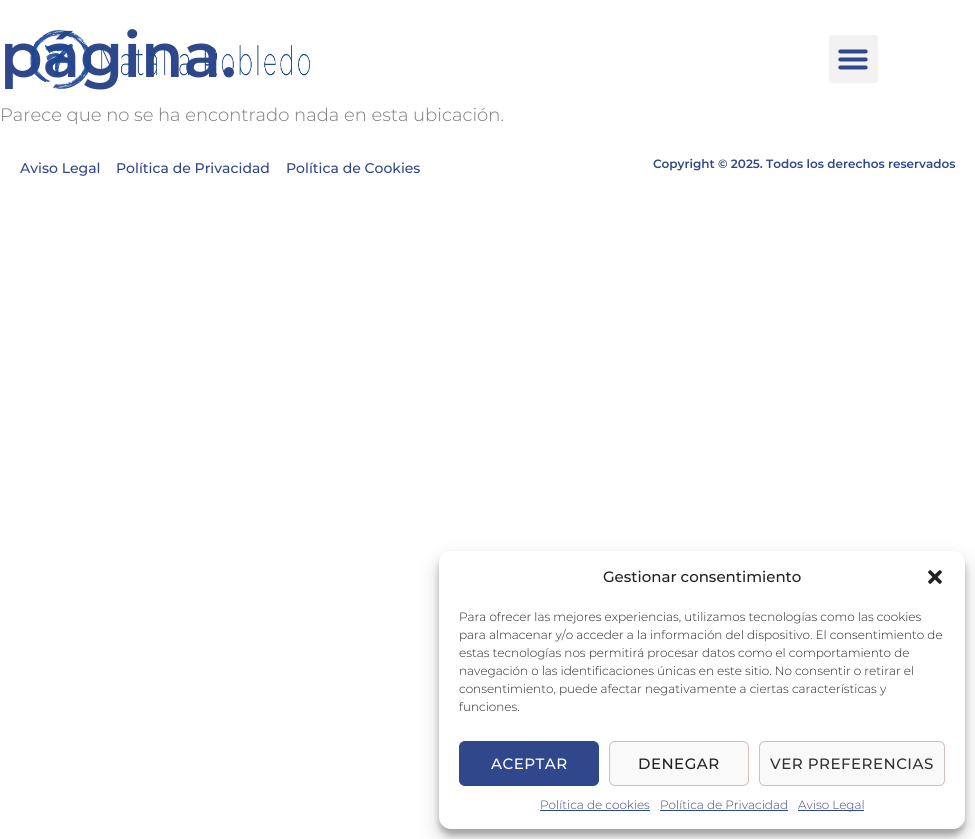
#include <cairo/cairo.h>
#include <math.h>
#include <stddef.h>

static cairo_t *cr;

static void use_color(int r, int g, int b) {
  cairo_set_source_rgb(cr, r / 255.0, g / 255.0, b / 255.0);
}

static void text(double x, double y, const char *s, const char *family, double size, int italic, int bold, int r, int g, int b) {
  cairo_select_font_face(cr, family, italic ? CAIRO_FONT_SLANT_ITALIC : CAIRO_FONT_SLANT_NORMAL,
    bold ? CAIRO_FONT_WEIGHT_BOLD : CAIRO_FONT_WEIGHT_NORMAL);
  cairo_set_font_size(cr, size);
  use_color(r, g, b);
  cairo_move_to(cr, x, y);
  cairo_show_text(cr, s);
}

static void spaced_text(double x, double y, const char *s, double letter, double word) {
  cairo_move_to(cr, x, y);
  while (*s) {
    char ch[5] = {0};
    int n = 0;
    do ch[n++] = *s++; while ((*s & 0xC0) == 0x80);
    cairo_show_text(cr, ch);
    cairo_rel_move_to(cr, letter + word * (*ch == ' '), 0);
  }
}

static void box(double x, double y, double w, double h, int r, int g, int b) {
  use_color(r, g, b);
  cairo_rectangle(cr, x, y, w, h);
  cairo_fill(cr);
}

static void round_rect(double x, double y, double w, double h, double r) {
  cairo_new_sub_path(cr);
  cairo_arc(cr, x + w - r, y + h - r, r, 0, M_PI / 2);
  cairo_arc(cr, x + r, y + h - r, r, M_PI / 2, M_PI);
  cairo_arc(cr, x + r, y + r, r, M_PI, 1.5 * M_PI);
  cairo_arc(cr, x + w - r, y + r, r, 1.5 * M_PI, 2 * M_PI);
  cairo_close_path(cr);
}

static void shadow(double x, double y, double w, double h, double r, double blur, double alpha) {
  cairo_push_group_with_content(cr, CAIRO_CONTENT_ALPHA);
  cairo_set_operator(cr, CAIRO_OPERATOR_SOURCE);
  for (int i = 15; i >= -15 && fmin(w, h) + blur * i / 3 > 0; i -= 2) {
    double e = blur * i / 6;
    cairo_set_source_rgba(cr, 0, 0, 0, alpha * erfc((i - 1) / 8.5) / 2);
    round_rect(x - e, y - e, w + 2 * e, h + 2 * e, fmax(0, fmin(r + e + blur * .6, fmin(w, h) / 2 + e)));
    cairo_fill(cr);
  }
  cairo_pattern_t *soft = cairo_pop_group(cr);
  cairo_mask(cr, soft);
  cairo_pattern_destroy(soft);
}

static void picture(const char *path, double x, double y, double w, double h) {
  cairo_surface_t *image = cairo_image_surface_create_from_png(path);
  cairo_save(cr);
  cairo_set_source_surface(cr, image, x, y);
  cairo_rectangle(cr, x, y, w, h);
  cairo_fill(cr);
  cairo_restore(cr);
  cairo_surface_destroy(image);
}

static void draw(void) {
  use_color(255, 255, 255);
  cairo_paint(cr);
  use_color(242, 242, 242);
  round_rect(829, 35, 49, 48, 3);
  cairo_fill(cr);
  picture("img_02.png", 838, 49, 30, 21);
  use_color(0, 0, 0);
  shadow(439, 557, 526, 278, 12, 3, 0.23);
  shadow(439, 561, 526, 278, 12, 10, 0.19);
  use_color(255, 255, 255);
  round_rect(439, 551, 526, 278, 12);
  cairo_fill(cr);
  picture("img_03.png", 928, 570, 14, 14);
  use_color(48, 71, 140);
  round_rect(459.5, 741.5, 139, 44, 5.5);
  cairo_fill_preserve(cr);
  cairo_set_line_width(cr, 1);
  cairo_stroke(cr);
  use_color(249, 249, 249);
  round_rect(609.5, 741.5, 139, 44, 5.5);
  cairo_fill_preserve(cr);
  use_color(218, 187, 187);
  cairo_stroke(cr);
  use_color(249, 249, 249);
  round_rect(759.5, 741.5, 185, 44, 5.5);
  cairo_fill_preserve(cr);
  use_color(218, 187, 187);
  cairo_stroke(cr);
  box(540, 810, 110, 1, 48, 71, 140);
  box(660, 810, 128, 1, 48, 71, 140);
  box(798, 810, 66, 1, 48, 71, 140);
  text(0, 77, "página.", "Montserrat SemiBold", 62, 0, 0, 48, 71, 140);
  text(0, 121, "Parece que no se ha encontrado nada en esta ubicación.", "Montserrat Light", 18, 0, 0, 122, 122, 122);
  picture("img_01.png", 30, 30, 280, 59);
  text(20, 173, "Aviso Legal", "Montserrat Medium", 14, 0, 0, 48, 71, 140);
  text(116, 173, "Política de Privacidad", "Montserrat Medium", 14, 0, 0, 48, 71, 140);
  text(286, 173, "Política de Cookies", "Montserrat Medium", 14, 0, 0, 48, 71, 140);
  text(653, 168, "Copyright © 2025. Todos los derechos reservados", "Montserrat SemiBold", 12, 0, 0, 48, 71, 140);
  text(603, 582, "Gestionar consentimiento", "Montserrat Medium", 15, 0, 0, 34, 34, 34);
  text(459, 621, "Para ofrecer las mejores experiencias, utilizamos tecnologías como las cookies", "Montserrat Light", 12, 0, 0, 34, 34, 34);
  text(459, 639, "para almacenar y/o acceder a la información del dispositivo. El consentimiento de", "Montserrat Light", 12, 0, 0, 34, 34, 34);
  text(459, 657, "estas tecnologías nos permitirá procesar datos como el comportamiento de", "Montserrat Light", 12, 0, 0, 34, 34, 34);
  text(459, 675, "navegación o las identificaciones únicas en este sitio. No consentir o retirar el", "Montserrat Light", 12, 0, 0, 34, 34, 34);
  text(459, 693, "consentimiento, puede afectar negativamente a ciertas características y", "Montserrat Light", 12, 0, 0, 34, 34, 34);
  text(459, 711, "funciones.", "Montserrat Light", 12, 0, 0, 34, 34, 34);
  cairo_select_font_face(cr, "Montserrat Medium", CAIRO_FONT_SLANT_NORMAL, CAIRO_FONT_WEIGHT_NORMAL);
  cairo_set_font_size(cr, 15);
  use_color(255, 255, 255);
  spaced_text(491, 769, "ACEPTAR", 0.5, 0);
  use_color(34, 34, 34);
  spaced_text(638, 769, "DENEGAR", 0.5, 0);
  use_color(51, 51, 51);
  spaced_text(770, 769, "VER PREFERENCIAS", 0.5, 0);
  text(540, 809, "Política de cookies", "Montserrat Light", 12, 0, 0, 48, 71, 140);
  text(660, 809, "Política de Privacidad", "Montserrat Light", 12, 0, 0, 48, 71, 140);
  text(798, 809, "Aviso Legal", "Montserrat Light", 12, 0, 0, 48, 71, 140);
}

int main(void) {
  cairo_surface_t *surface = cairo_image_surface_create(CAIRO_FORMAT_RGB24, 975, 839);
  cr = cairo_create(surface);
  cairo_font_options_t *options = cairo_font_options_create();
  cairo_font_options_set_hint_metrics(options, CAIRO_HINT_METRICS_OFF);
  cairo_font_options_set_hint_style(options, CAIRO_HINT_STYLE_NONE);
  cairo_set_font_options(cr, options);
  cairo_set_miter_limit(cr, 4);
  draw();
  cairo_surface_write_to_png(surface, "out.png");
  cairo_font_options_destroy(options);
  cairo_destroy(cr);
  cairo_surface_destroy(surface);
  return 0;
}
